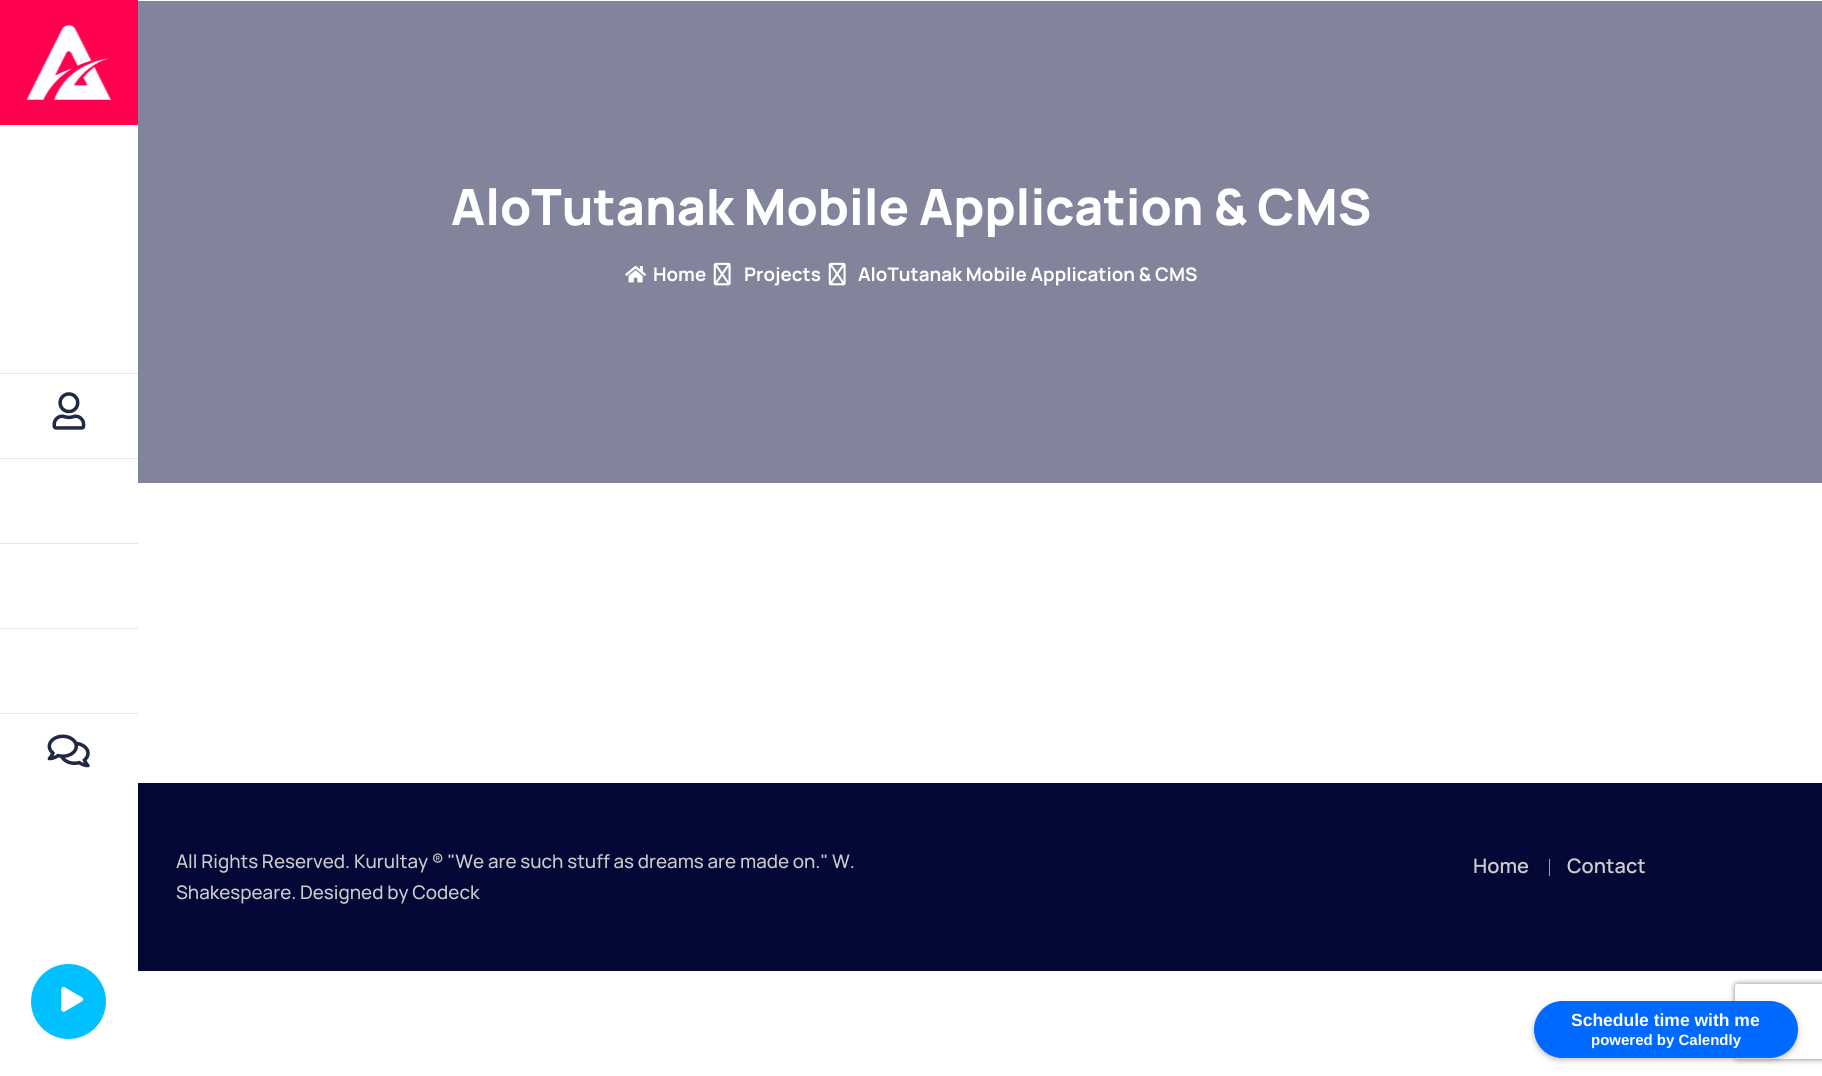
#include <cairo/cairo.h>
#include <math.h>
#include <stddef.h>

static cairo_t *cr;

static void use_color(int r, int g, int b) {
  cairo_set_source_rgb(cr, r / 255.0, g / 255.0, b / 255.0);
}

static void text(double x, double y, const char *s, const char *family, double size, int italic, int bold, int r, int g, int b) {
  cairo_select_font_face(cr, family, italic ? CAIRO_FONT_SLANT_ITALIC : CAIRO_FONT_SLANT_NORMAL,
    bold ? CAIRO_FONT_WEIGHT_BOLD : CAIRO_FONT_WEIGHT_NORMAL);
  cairo_set_font_size(cr, size);
  use_color(r, g, b);
  cairo_move_to(cr, x, y);
  cairo_show_text(cr, s);
}

static void box(double x, double y, double w, double h, int r, int g, int b) {
  use_color(r, g, b);
  cairo_rectangle(cr, x, y, w, h);
  cairo_fill(cr);
}

static void round_rect(double x, double y, double w, double h, double r) {
  cairo_new_sub_path(cr);
  cairo_arc(cr, x + w - r, y + h - r, r, 0, M_PI / 2);
  cairo_arc(cr, x + r, y + h - r, r, M_PI / 2, M_PI);
  cairo_arc(cr, x + r, y + r, r, M_PI, 1.5 * M_PI);
  cairo_arc(cr, x + w - r, y + r, r, 1.5 * M_PI, 2 * M_PI);
  cairo_close_path(cr);
}

static void shadow(double x, double y, double w, double h, double r, double blur, double alpha) {
  cairo_push_group_with_content(cr, CAIRO_CONTENT_ALPHA);
  cairo_set_operator(cr, CAIRO_OPERATOR_SOURCE);
  for (int i = 15; i >= -15 && fmin(w, h) + blur * i / 3 > 0; i -= 2) {
    double e = blur * i / 6;
    cairo_set_source_rgba(cr, 0, 0, 0, alpha * erfc((i - 1) / 8.5) / 2);
    round_rect(x - e, y - e, w + 2 * e, h + 2 * e, fmax(0, fmin(r + e + blur * .6, fmin(w, h) / 2 + e)));
    cairo_fill(cr);
  }
  cairo_pattern_t *soft = cairo_pop_group(cr);
  cairo_mask(cr, soft);
  cairo_pattern_destroy(soft);
}

static void picture(const char *path, double x, double y, double w, double h) {
  cairo_surface_t *image = cairo_image_surface_create_from_png(path);
  cairo_save(cr);
  cairo_set_source_surface(cr, image, x, y);
  cairo_rectangle(cr, x, y, w, h);
  cairo_fill(cr);
  cairo_restore(cr);
  cairo_surface_destroy(image);
}

static void draw(void) {
  use_color(255, 255, 255);
  cairo_paint(cr);
  box(0, 0, 138, 125, 255, 1, 79);
  picture("img_01.png", 26, 25, 86, 75);
  box(0, 373, 138, 1, 231, 231, 231);
  picture("img_02.png", 52, 392, 34, 38);
  box(0, 458, 138, 1, 231, 231, 231);
  box(0, 543, 138, 1, 231, 231, 231);
  box(0, 628, 138, 1, 231, 231, 231);
  box(0, 713, 138, 1, 231, 231, 231);
  picture("img_03.png", 47, 734, 43, 34);
  use_color(0, 192, 255);
  cairo_arc(cr, 68.5, 1001.5, 37.5, 0, 2 * M_PI);
  cairo_fill(cr);
  picture("img_04.png", 61, 986, 23, 26);
  box(138, 1, 1684, 482, 130, 132, 155);
  picture("img_05.png", 625, 266, 22, 17);
  picture("img_06.png", 713, 262, 18, 24);
  picture("img_06.png", 828, 262, 18, 24);
  box(138, 783, 1684, 188, 4, 8, 54);
  box(1549, 859, 1, 17, 163, 161, 161);
  use_color(0, 0, 0);
  shadow(1534, 1004, 264, 56, 28, 3, 0.25);
  cairo_save(cr);
  cairo_set_fill_rule(cr, CAIRO_FILL_RULE_EVEN_ODD);
  cairo_new_path(cr);
  cairo_move_to(cr, 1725, 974);
  cairo_line_to(cr, 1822, 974);
  cairo_line_to(cr, 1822, 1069);
  cairo_line_to(cr, 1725, 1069);
  cairo_close_path(cr);
  cairo_move_to(cr, 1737.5, 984);
  cairo_line_to(cr, 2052.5, 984);
  cairo_curve_to(cr, 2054, 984, 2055, 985, 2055, 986.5);
  cairo_line_to(cr, 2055, 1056.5);
  cairo_curve_to(cr, 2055, 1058, 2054, 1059, 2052.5, 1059);
  cairo_line_to(cr, 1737.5, 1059);
  cairo_curve_to(cr, 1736, 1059, 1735, 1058, 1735, 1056.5);
  cairo_line_to(cr, 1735, 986.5);
  cairo_curve_to(cr, 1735, 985, 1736, 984, 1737.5, 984);
  cairo_close_path(cr);
  cairo_clip(cr);
  use_color(128, 128, 128);
  shadow(1735, 984, 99, 75, 2.5, 3, 1);
  cairo_restore(cr);
  use_color(0, 105, 255);
  round_rect(1534, 1001, 264, 57, 28.5);
  cairo_fill(cr);
  text(451, 225, "AloTutanak Mobile Application & CMS", "Manrope ExtraBold", 50, 0, 0, 255, 255, 255);
  text(653, 281, "Home", "Manrope", 18.75, 0, 1, 255, 255, 255);
  text(744, 281, "Projects", "Manrope", 18.75, 0, 1, 255, 255, 255);
  text(858, 281, "AloTutanak Mobile Application & CMS", "Manrope", 18.75, 0, 1, 255, 255, 255);
  text(176, 868, "All Rights Reserved. Kurultay ® \"We are such stuff as dreams are made on.\" W.", "Manrope Medium", 18.75, 0, 0, 204, 204, 204);
  text(176, 899, "Shakespeare. Designed by Codeck", "Manrope Medium", 18.75, 0, 0, 204, 204, 204);
  text(1473, 873, "Home", "Manrope SemiBold", 20, 0, 0, 204, 204, 204);
  text(1567, 873, "Contact", "Manrope SemiBold", 20, 0, 0, 204, 204, 204);
  text(1571, 1026, "Schedule time with me", "Liberation Sans", 17.5, 0, 1, 255, 255, 255);
  text(1591, 1045, "powered by Calendly", "Liberation Sans", 15, 0, 1, 255, 255, 255);
}

int main(void) {
  cairo_surface_t *surface = cairo_image_surface_create(CAIRO_FORMAT_RGB24, 1822, 1076);
  cr = cairo_create(surface);
  cairo_font_options_t *options = cairo_font_options_create();
  cairo_font_options_set_hint_metrics(options, CAIRO_HINT_METRICS_OFF);
  cairo_font_options_set_hint_style(options, CAIRO_HINT_STYLE_NONE);
  cairo_set_font_options(cr, options);
  cairo_set_miter_limit(cr, 4);
  draw();
  cairo_surface_write_to_png(surface, "out.png");
  cairo_font_options_destroy(options);
  cairo_destroy(cr);
  cairo_surface_destroy(surface);
  return 0;
}
